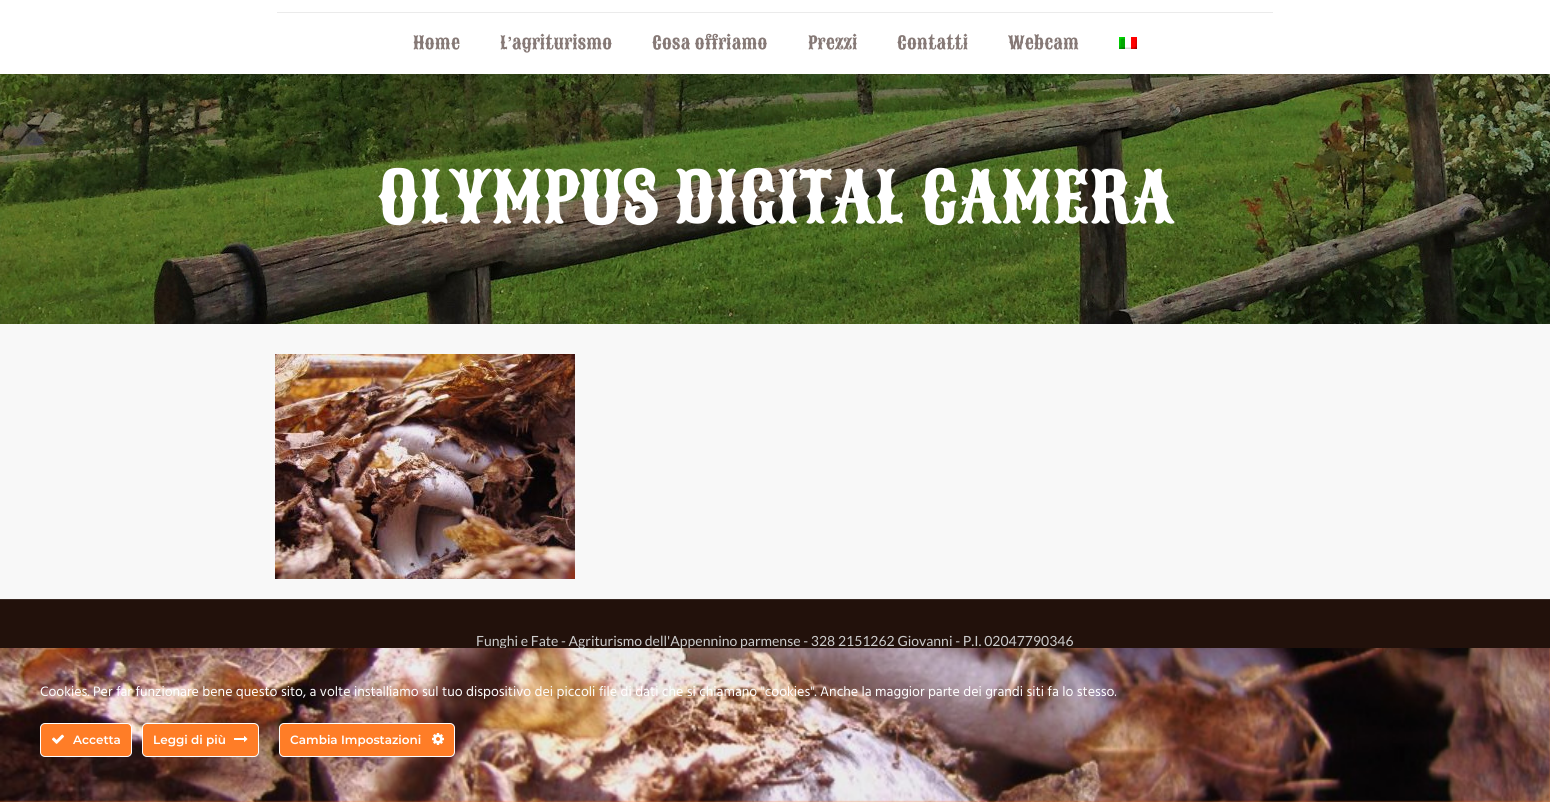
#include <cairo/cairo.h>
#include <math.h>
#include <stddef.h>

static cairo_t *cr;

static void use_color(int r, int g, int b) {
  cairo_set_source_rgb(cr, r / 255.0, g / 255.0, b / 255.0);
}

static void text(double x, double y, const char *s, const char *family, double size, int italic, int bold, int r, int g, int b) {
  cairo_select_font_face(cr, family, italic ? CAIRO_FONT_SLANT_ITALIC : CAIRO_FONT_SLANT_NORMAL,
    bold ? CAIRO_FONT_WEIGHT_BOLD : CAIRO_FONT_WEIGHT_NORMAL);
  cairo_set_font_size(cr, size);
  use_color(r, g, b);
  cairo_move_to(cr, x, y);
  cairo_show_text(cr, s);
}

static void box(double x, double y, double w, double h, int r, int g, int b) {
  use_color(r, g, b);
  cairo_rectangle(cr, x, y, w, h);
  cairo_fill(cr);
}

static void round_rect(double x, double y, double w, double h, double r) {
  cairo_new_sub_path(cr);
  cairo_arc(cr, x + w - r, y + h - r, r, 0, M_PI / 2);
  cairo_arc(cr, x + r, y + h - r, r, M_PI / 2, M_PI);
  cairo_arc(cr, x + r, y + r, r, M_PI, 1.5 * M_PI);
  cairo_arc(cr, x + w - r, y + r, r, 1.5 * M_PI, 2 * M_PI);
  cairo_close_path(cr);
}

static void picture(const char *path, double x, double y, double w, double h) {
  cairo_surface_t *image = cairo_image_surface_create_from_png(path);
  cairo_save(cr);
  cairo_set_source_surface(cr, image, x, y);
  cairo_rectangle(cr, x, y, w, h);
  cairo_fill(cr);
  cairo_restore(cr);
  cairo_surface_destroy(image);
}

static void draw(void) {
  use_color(248, 248, 248);
  cairo_paint(cr);
  picture("img_01.png", 0, 74, 1550, 250);
  box(0, 0, 1550, 74, 255, 255, 255);
  box(277, 12, 996, 1, 235, 235, 235);
  picture("img_02.png", 1119, 37, 18, 12);
  picture("img_03.png", 275, 354, 300, 225);
  box(0, 600, 1550, 48, 34, 17, 11);
  box(0, 599, 1550, 1, 56, 41, 35);
  text(413, 49, "Home", "Sancreek", 18, 0, 0, 134, 121, 118);
  text(500, 49, "L’agriturismo", "Sancreek", 18, 0, 0, 134, 121, 118);
  text(652, 49, "Cosa offriamo", "Sancreek", 18, 0, 0, 134, 121, 118);
  text(808, 49, "Prezzi", "Sancreek", 18, 0, 0, 134, 121, 118);
  text(897, 49, "Contatti", "Sancreek", 18, 0, 0, 134, 121, 118);
  text(1008, 49, "Webcam", "Sancreek", 18, 0, 0, 134, 121, 118);
  text(377, 222, "OLYMPUS DIGITAL CAMERA", "Sancreek", 70, 0, 0, 255, 255, 255);
  text(476, 646, "Funghi e Fate - Agriturismo dell'Appennino parmense - 328 2151262 Giovanni - P.I. 02047790346", "Lato", 14, 0, 0, 204, 204, 204);
  box(0, 648, 1550, 154, 255, 125, 39);
  picture("img_04.png", 0, 648, 1550, 154);
  text(40, 696, "Cookies. Per far funzionare bene questo sito, a volte installiamo sul tuo dispositivo dei piccoli file di dati che si chiamano \"cookies\". Anche la maggior parte dei grandi siti fa lo stesso.", "Hind", 14, 0, 0, 255, 255, 255);
  use_color(255, 125, 39);
  round_rect(40.5, 723.5, 91, 33, 4.5);
  cairo_fill_preserve(cr);
  use_color(255, 255, 255);
  cairo_set_line_width(cr, 1);
  cairo_stroke(cr);
  picture("img_05.png", 52, 734, 12, 10);
  text(73, 744, "Accetta", "Montserrat SemiBold", 12, 0, 0, 255, 255, 255);
  use_color(255, 125, 39);
  round_rect(142.5, 723.5, 116, 33, 4.5);
  cairo_fill_preserve(cr);
  use_color(255, 255, 255);
  cairo_stroke(cr);
  text(153, 744, "Leggi di più", "Montserrat SemiBold", 12, 0, 0, 255, 255, 255);
  picture("img_06.png", 234, 736, 14, 6);
  use_color(255, 125, 39);
  round_rect(279.5, 723.5, 175, 33, 4.5);
  cairo_fill_preserve(cr);
  use_color(255, 255, 255);
  cairo_stroke(cr);
  text(290, 744, "Cambia Impostazioni", "Montserrat SemiBold", 12, 0, 0, 255, 255, 255);
  picture("img_07.png", 432, 733, 12, 12);
}

int main(void) {
  cairo_surface_t *surface = cairo_image_surface_create(CAIRO_FORMAT_RGB24, 1550, 802);
  cr = cairo_create(surface);
  cairo_font_options_t *options = cairo_font_options_create();
  cairo_font_options_set_hint_metrics(options, CAIRO_HINT_METRICS_OFF);
  cairo_font_options_set_hint_style(options, CAIRO_HINT_STYLE_NONE);
  cairo_set_font_options(cr, options);
  cairo_set_miter_limit(cr, 4);
  draw();
  cairo_surface_write_to_png(surface, "out.png");
  cairo_font_options_destroy(options);
  cairo_destroy(cr);
  cairo_surface_destroy(surface);
  return 0;
}
